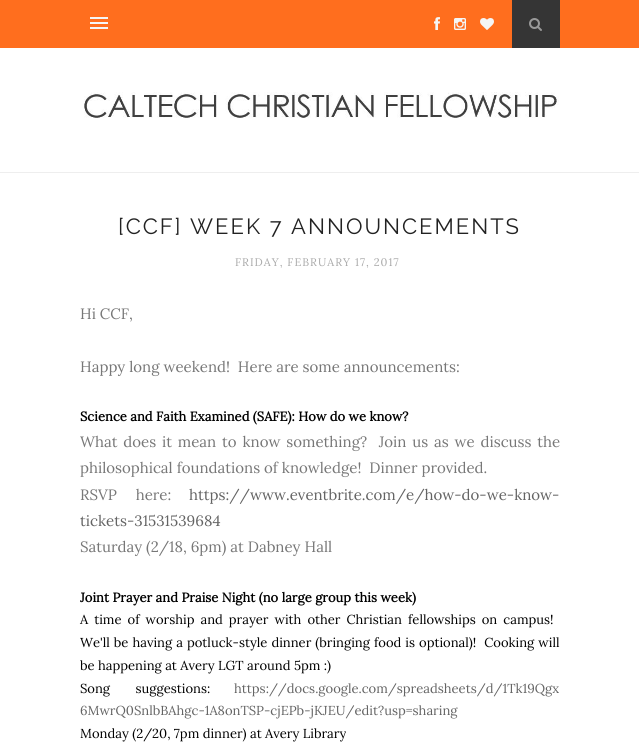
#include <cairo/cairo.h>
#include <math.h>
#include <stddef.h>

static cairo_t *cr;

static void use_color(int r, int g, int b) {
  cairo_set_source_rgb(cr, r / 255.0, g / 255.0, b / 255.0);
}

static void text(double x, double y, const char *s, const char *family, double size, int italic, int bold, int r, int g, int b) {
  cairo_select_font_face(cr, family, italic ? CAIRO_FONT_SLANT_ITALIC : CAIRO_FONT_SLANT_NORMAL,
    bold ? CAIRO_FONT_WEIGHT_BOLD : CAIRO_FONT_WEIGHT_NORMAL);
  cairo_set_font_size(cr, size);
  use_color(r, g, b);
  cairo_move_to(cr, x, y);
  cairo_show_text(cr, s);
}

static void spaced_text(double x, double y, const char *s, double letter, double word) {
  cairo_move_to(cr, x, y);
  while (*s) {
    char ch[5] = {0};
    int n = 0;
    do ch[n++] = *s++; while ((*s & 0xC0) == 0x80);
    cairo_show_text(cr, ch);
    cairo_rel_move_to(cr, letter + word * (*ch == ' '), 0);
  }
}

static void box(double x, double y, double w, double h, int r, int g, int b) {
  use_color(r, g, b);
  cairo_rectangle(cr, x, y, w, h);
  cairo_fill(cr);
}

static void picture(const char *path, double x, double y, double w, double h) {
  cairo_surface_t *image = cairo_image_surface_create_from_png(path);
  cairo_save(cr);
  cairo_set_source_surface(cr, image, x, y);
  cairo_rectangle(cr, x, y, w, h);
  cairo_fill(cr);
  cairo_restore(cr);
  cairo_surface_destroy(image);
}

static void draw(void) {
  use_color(255, 255, 255);
  cairo_paint(cr);
  box(0, 0, 639, 48, 255, 110, 30);
  box(90, 17, 18, 2, 245, 245, 245);
  box(90, 22, 18, 2, 245, 245, 245);
  box(90, 27, 18, 2, 245, 245, 245);
  picture("img_01.png", 434, 17, 6, 13);
  picture("img_02.png", 454, 18, 12, 12);
  picture("img_03.png", 480, 18, 14, 12);
  box(512, 0, 48, 48, 53, 53, 53);
  picture("img_04.png", 529, 18, 13, 13);
  box(0, 172, 639, 1, 238, 238, 238);
  picture("img_05.png", 84, 92, 475, 26);
  cairo_select_font_face(cr, "Raleway", CAIRO_FONT_SLANT_NORMAL, CAIRO_FONT_WEIGHT_NORMAL);
  cairo_set_font_size(cr, 22);
  use_color(34, 34, 34);
  spaced_text(118, 234, "[CCF] WEEK 7 ANNOUNCEMENTS", 2, 0);
  cairo_select_font_face(cr, "Lora", CAIRO_FONT_SLANT_NORMAL, CAIRO_FONT_WEIGHT_NORMAL);
  cairo_set_font_size(cr, 11);
  use_color(170, 170, 170);
  spaced_text(235, 266, "FRIDAY, FEBRUARY 17, 2017", 1, 0);
  text(80, 319, "Hi CCF,", "Lora", 15, 0, 0, 119, 119, 119);
  text(80, 372, "Happy long weekend!  Here are some announcements:", "Lora", 15, 0, 0, 119, 119, 119);
  text(80, 421, "Science and Faith Examined (SAFE): How do we know?", "Lora", 13, 0, 1, 0, 0, 0);
  cairo_select_font_face(cr, "Lora", CAIRO_FONT_SLANT_NORMAL, CAIRO_FONT_WEIGHT_NORMAL);
  cairo_set_font_size(cr, 15);
  use_color(119, 119, 119);
  spaced_text(80, 447, "What does it mean to know something?  Join us as we discuss the", 0, 1.9);
  text(80, 473, "philosophical foundations of knowledge!  Dinner provided.", "Lora", 15, 0, 0, 119, 119, 119);
  spaced_text(80, 500, "RSVP here:", 0, 15);
  text(189, 500, "https://www.eventbrite.com/e/how-do-we-know-", "Lora", 15, 0, 0, 100, 100, 100);
  text(80, 526, "tickets-31531539684", "Lora", 15, 0, 0, 100, 100, 100);
  text(80, 552, "Saturday (2/18, 6pm) at Dabney Hall", "Lora", 15, 0, 0, 119, 119, 119);
  text(80, 602, "Joint Prayer and Praise Night (no large group this week)", "Lora", 13, 0, 1, 0, 0, 0);
  cairo_select_font_face(cr, "Lora", CAIRO_FONT_SLANT_NORMAL, CAIRO_FONT_WEIGHT_NORMAL);
  spaced_text(80, 624, "A time of worship and prayer with other Christian fellowships on campus!", 0, 2.6);
  spaced_text(80, 647, "We'll be having a potluck-style dinner (bringing food is optional)!  Cooking will", 0, 0.6);
  text(80, 670, "be happening at Avery LGT around 5pm :)", "Lora", 13, 0, 0, 0, 0, 0);
  spaced_text(80, 693, "Song suggestions:", 0, 22);
  text(234, 693, "https://docs.google.com/spreadsheets/d/1Tk19Qgx", "Lora", 13, 0, 0, 100, 100, 100);
  text(80, 715, "6MwrQ0SnlbBAhgc-1A8onTSP-cjEPb-jKJEU/edit?usp=sharing", "Lora", 13, 0, 0, 100, 100, 100);
  text(80, 738, "Monday (2/20, 7pm dinner) at Avery Library", "Lora", 13, 0, 0, 0, 0, 0);
}

int main(void) {
  cairo_surface_t *surface = cairo_image_surface_create(CAIRO_FORMAT_RGB24, 639, 756);
  cr = cairo_create(surface);
  cairo_font_options_t *options = cairo_font_options_create();
  cairo_font_options_set_hint_metrics(options, CAIRO_HINT_METRICS_OFF);
  cairo_font_options_set_hint_style(options, CAIRO_HINT_STYLE_NONE);
  cairo_set_font_options(cr, options);
  cairo_set_miter_limit(cr, 4);
  draw();
  cairo_surface_write_to_png(surface, "out.png");
  cairo_font_options_destroy(options);
  cairo_destroy(cr);
  cairo_surface_destroy(surface);
  return 0;
}
